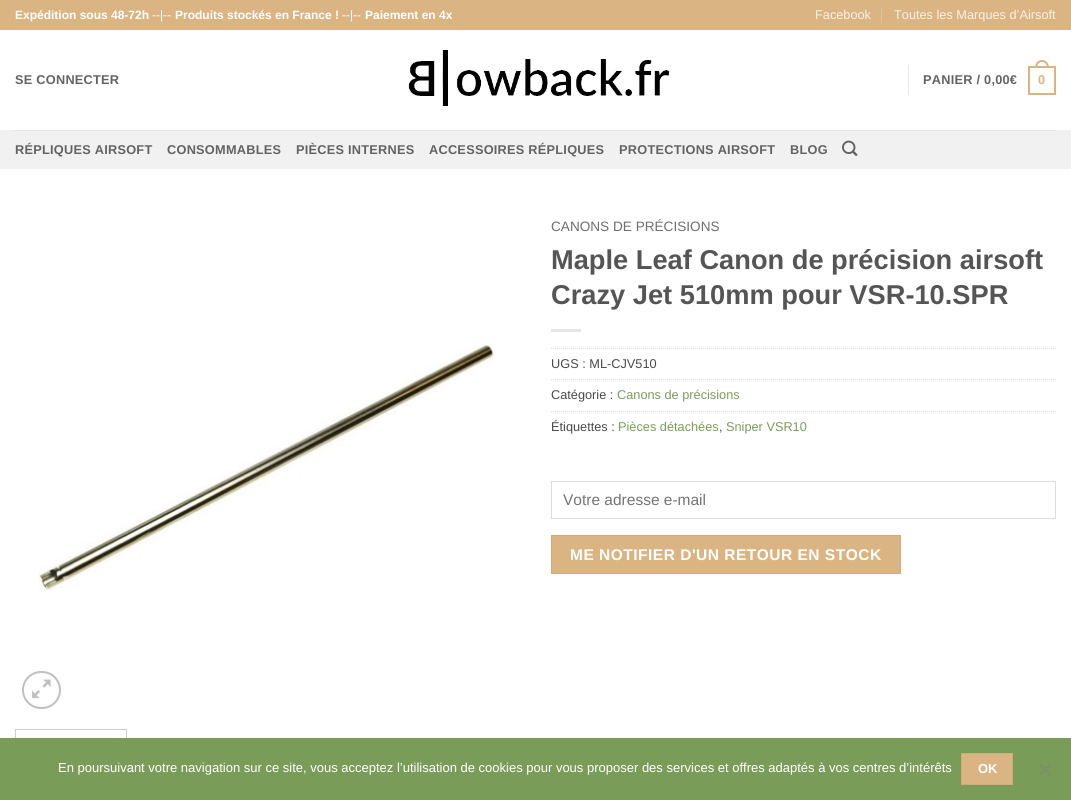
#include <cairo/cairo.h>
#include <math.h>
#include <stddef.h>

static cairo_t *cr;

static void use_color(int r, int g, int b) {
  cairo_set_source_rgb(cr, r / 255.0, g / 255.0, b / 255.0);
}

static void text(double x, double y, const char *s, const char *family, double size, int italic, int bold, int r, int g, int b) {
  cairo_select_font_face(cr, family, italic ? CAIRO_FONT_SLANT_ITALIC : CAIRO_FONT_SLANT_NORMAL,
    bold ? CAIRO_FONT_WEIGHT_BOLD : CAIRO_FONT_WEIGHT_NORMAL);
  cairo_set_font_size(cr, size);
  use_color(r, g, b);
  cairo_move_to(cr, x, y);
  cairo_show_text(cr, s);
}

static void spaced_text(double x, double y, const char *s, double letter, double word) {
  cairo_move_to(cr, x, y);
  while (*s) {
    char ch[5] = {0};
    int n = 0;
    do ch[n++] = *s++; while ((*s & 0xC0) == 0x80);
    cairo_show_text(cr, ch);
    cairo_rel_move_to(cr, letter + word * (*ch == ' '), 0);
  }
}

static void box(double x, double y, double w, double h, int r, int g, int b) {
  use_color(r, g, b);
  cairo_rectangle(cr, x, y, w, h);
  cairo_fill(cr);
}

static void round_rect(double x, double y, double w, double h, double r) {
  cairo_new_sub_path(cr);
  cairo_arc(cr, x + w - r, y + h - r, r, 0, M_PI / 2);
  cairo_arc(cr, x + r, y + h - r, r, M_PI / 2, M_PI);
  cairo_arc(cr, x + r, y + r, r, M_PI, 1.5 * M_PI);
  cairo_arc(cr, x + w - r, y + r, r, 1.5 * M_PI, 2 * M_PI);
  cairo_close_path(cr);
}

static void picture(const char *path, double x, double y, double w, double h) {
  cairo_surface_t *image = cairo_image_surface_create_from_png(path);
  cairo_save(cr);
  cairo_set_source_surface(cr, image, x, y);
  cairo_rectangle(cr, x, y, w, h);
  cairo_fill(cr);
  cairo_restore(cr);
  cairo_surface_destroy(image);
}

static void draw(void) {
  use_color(255, 255, 255);
  cairo_paint(cr);
  box(0, 0, 1071, 30, 218, 181, 131);
  box(881, 8, 1, 15, 225, 196, 156);
  picture("img_01.png", 408, 50, 262, 56);
  box(908, 65, 1, 30, 230, 230, 230);
  cairo_rectangle(cr, 1029, 67, 26, 27);
  use_color(218, 181, 131);
  cairo_stroke(cr);
  cairo_set_fill_rule(cr, CAIRO_FILL_RULE_EVEN_ODD);
  cairo_new_path(cr);
  cairo_move_to(cr, 1042, 60);
  cairo_curve_to(cr, 1046.5, 60, 1049, 64, 1049, 68);
  cairo_line_to(cr, 1035, 68);
  cairo_curve_to(cr, 1035, 64, 1037.5, 60, 1042, 60);
  cairo_close_path(cr);
  cairo_move_to(cr, 1042, 62);
  cairo_curve_to(cr, 1045.5, 62, 1047, 65, 1047, 68);
  cairo_line_to(cr, 1037, 68);
  cairo_curve_to(cr, 1037, 65, 1038.5, 62, 1042, 62);
  cairo_close_path(cr);
  cairo_fill(cr);
  box(0, 130, 1071, 39, 241, 241, 241);
  box(15, 130, 1041, 1, 224, 224, 224);
  picture("img_02.png", 842, 140, 16, 16);
  picture("img_03.png", 38, 340, 459, 251);
  round_rect(23, 672, 37, 36, 18);
  use_color(192, 192, 192);
  cairo_stroke(cr);
  picture("img_04.png", 32, 679, 19, 20);
  cairo_rectangle(cr, 15.5, 729.5, 111, 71);
  use_color(204, 204, 204);
  cairo_set_line_width(cr, 1);
  cairo_stroke(cr);
  box(551, 329, 30, 3, 230, 230, 230);
  cairo_new_path(cr);
  cairo_move_to(cr, 551, 348.5);
  cairo_line_to(cr, 1056, 348.5);
  use_color(221, 221, 221);
  cairo_set_dash(cr, (double[]){1, 1}, 2, 0);
  cairo_stroke(cr);
  cairo_new_path(cr);
  cairo_move_to(cr, 551, 379.5);
  cairo_line_to(cr, 1056, 379.5);
  cairo_stroke(cr);
  cairo_new_path(cr);
  cairo_move_to(cr, 551, 411.5);
  cairo_line_to(cr, 1056, 411.5);
  cairo_stroke(cr);
  cairo_rectangle(cr, 551.5, 481.5, 504, 37);
  cairo_set_dash(cr, NULL, 0, 0);
  cairo_stroke(cr);
  use_color(218, 181, 131);
  cairo_rectangle(cr, 551.5, 535.5, 349, 38);
  cairo_fill_preserve(cr);
  use_color(207, 172, 124);
  cairo_stroke(cr);
  box(0, 738, 1071, 62, 122, 156, 89);
  use_color(218, 181, 131);
  cairo_rectangle(cr, 961.5, 753.5, 51, 31);
  cairo_fill_preserve(cr);
  use_color(207, 172, 124);
  cairo_stroke(cr);
  use_color(125, 142, 109);
  cairo_set_fill_rule(cr, CAIRO_FILL_RULE_WINDING);
  cairo_new_path(cr);
  cairo_move_to(cr, 1049.5, 763.5);
  cairo_line_to(cr, 1051, 765);
  cairo_line_to(cr, 1040.5, 775.5);
  cairo_line_to(cr, 1039, 774);
  cairo_close_path(cr);
  cairo_fill(cr);
  cairo_new_path(cr);
  cairo_move_to(cr, 1039, 765);
  cairo_line_to(cr, 1040.5, 763.5);
  cairo_line_to(cr, 1051, 774);
  cairo_line_to(cr, 1049.5, 775.5);
  cairo_close_path(cr);
  cairo_fill(cr);
  text(15, 19, "Expédition sous 48-72h", "Liberation Sans", 12, 0, 1, 255, 255, 255);
  text(152, 19, "--|--", "Liberation Sans", 12, 0, 0, 255, 255, 255);
  text(175, 19, "Produits stockés en France !", "Liberation Sans", 12, 0, 1, 255, 255, 255);
  text(342, 19, "--|--", "Liberation Sans", 12, 0, 0, 255, 255, 255);
  text(365, 19, "Paiement en 4x", "Liberation Sans", 12, 0, 1, 255, 255, 255);
  text(815, 19, "Facebook", "Liberation Sans", 12.75, 0, 0, 248, 240, 230);
  text(894, 19, "Toutes les Marques d’Airsoft", "Liberation Sans", 12.75, 0, 0, 248, 240, 230);
  cairo_select_font_face(cr, "Liberation Sans", CAIRO_FONT_SLANT_NORMAL, CAIRO_FONT_WEIGHT_BOLD);
  use_color(99, 99, 99);
  spaced_text(15, 84, "SE CONNECTER", 0.25, 0);
  spaced_text(923, 84, "PANIER / 0,00€", 0.25, 0);
  use_color(218, 181, 131);
  spaced_text(1038, 84, "0", 0.25, 0);
  use_color(99, 99, 99);
  spaced_text(15, 154, "RÉPLIQUES AIRSOFT", 0.25, 0);
  spaced_text(167, 154, "CONSOMMABLES", 0.25, 0);
  spaced_text(296, 154, "PIÈCES INTERNES", 0.25, 0);
  spaced_text(429, 154, "ACCESSOIRES RÉPLIQUES", 0.25, 0);
  spaced_text(619, 154, "PROTECTIONS AIRSOFT", 0.25, 0);
  spaced_text(790, 154, "BLOG", 0.25, 0);
  text(551, 231, "CANONS DE PRÉCISIONS", "Liberation Sans", 13.6, 0, 0, 110, 110, 110);
  text(551, 269, "Maple Leaf Canon de précision airsoft", "Liberation Sans", 27.25, 0, 1, 85, 85, 85);
  text(551, 304, "Crazy Jet 510mm pour VSR-10.SPR", "Liberation Sans", 27.25, 0, 1, 85, 85, 85);
  text(551, 368, "UGS : ML-CJV510", "Liberation Sans", 12.75, 0, 0, 74, 74, 74);
  text(551, 399, "Catégorie :", "Liberation Sans", 12.75, 0, 0, 74, 74, 74);
  text(617, 399, "Canons de précisions", "Liberation Sans", 12.75, 0, 0, 122, 156, 89);
  text(551, 431, "Étiquettes :", "Liberation Sans", 12.75, 0, 0, 74, 74, 74);
  text(618, 431, "Pièces détachées", "Liberation Sans", 12.75, 0, 0, 122, 156, 89);
  text(719, 431, ",", "Liberation Sans", 12.75, 0, 0, 74, 74, 74);
  text(726, 431, "Sniper VSR10", "Liberation Sans", 12.75, 0, 0, 122, 156, 89);
  text(563, 505, "Votre adresse e-mail", "Liberation Sans", 15.5, 0, 0, 117, 117, 117);
  cairo_select_font_face(cr, "Liberation Sans", CAIRO_FONT_SLANT_NORMAL, CAIRO_FONT_WEIGHT_BOLD);
  use_color(255, 255, 255);
  spaced_text(570, 560, "ME NOTIFIER D'UN RETOUR EN STOCK", 0.5, 0);
  text(58, 772, "En poursuivant votre navigation sur ce site, vous acceptez l’utilisation de cookies pour vous proposer des services et offres adaptés à vos centres d’intérêts", "Liberation Sans", 13, 0, 0, 255, 255, 255);
  text(978, 773, "OK", "Liberation Sans", 13, 0, 1, 255, 255, 255);
}

int main(void) {
  cairo_surface_t *surface = cairo_image_surface_create(CAIRO_FORMAT_RGB24, 1071, 800);
  cr = cairo_create(surface);
  cairo_font_options_t *options = cairo_font_options_create();
  cairo_font_options_set_hint_metrics(options, CAIRO_HINT_METRICS_OFF);
  cairo_font_options_set_hint_style(options, CAIRO_HINT_STYLE_NONE);
  cairo_set_font_options(cr, options);
  cairo_set_miter_limit(cr, 4);
  draw();
  cairo_surface_write_to_png(surface, "out.png");
  cairo_font_options_destroy(options);
  cairo_destroy(cr);
  cairo_surface_destroy(surface);
  return 0;
}
